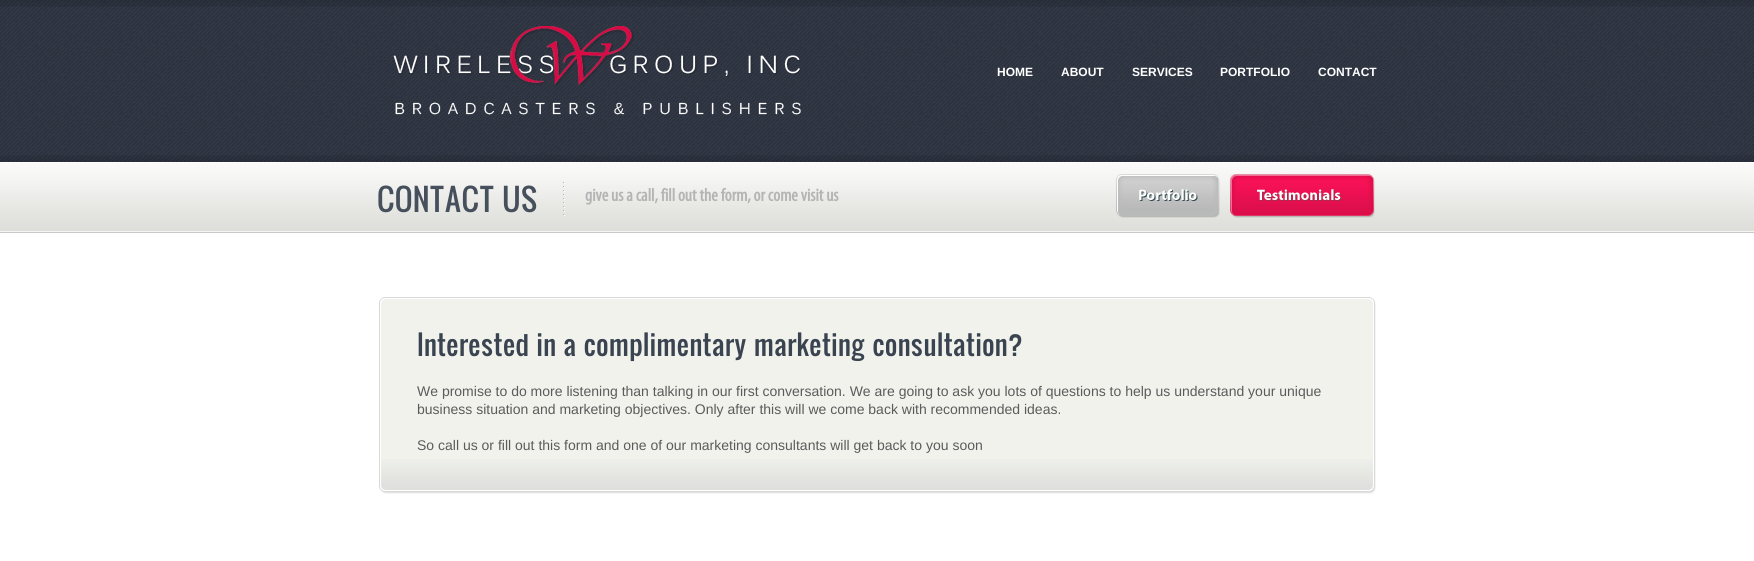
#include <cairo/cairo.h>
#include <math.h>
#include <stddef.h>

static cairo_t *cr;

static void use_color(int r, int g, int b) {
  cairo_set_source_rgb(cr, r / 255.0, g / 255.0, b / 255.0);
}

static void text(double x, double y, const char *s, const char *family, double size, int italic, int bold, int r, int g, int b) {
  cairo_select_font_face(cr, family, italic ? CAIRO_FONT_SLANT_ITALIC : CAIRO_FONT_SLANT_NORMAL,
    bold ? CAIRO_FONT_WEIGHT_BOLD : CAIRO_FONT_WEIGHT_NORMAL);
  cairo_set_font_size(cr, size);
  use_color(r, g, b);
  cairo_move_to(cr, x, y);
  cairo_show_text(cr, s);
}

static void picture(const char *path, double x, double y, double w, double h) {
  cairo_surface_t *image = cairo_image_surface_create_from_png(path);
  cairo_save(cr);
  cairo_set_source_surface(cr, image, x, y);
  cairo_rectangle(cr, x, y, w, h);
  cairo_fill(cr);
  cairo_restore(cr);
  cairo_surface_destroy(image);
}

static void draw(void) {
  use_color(255, 255, 255);
  cairo_paint(cr);
  picture("img_01.png", 0, 0, 1754, 162);
  picture("img_02.png", 0, 0, 1754, 7);
  picture("img_03.png", 393, 26, 408, 89);
  picture("img_04.png", 0, 155, 1754, 7);
  picture("img_05.png", 0, 163, 1754, 70);
  picture("img_06.png", 563, 182, 2, 34);
  picture("img_07.png", 1116, 174, 104, 44);
  picture("img_08.png", 1230, 174, 145, 44);
  picture("img_09.png", 379, 297, 997, 12);
  picture("img_10.png", 379, 309, 997, 150);
  picture("img_11.png", 379, 459, 997, 35);
  text(997, 76, "HOME", "Liberation Sans", 12, 0, 1, 255, 255, 255);
  text(1061, 76, "ABOUT", "Liberation Sans", 12, 0, 1, 255, 255, 255);
  text(1132, 76, "SERVICES", "Liberation Sans", 12, 0, 1, 255, 255, 255);
  text(1220, 76, "PORTFOLIO", "Liberation Sans", 12, 0, 1, 255, 255, 255);
  text(1318, 76, "CONTACT", "Liberation Sans", 12, 0, 1, 255, 255, 255);
  text(377, 212, "CONTACT US", "Oswald", 30, 0, 0, 70, 79, 92);
  text(585, 201, "give us a call, fill out the form, or come visit us", "Myriad", 18, 0, 1, 180, 180, 180);
  text(417, 356, "Interested in a complimentary marketing consultation?", "Oswald", 27, 0, 0, 58, 67, 80);
  text(417, 396, "We promise to do more listening than talking in our first conversation. We are going to ask you lots of questions to help us understand your unique", "Liberation Sans", 14, 0, 0, 91, 91, 91);
  text(417, 414, "business situation and marketing objectives. Only after this will we come back with recommended ideas.", "Liberation Sans", 14, 0, 0, 91, 91, 91);
  text(417, 450, "So call us or fill out this form and one of our marketing consultants will get back to you soon", "Liberation Sans", 14, 0, 0, 91, 91, 91);
}

int main(void) {
  cairo_surface_t *surface = cairo_image_surface_create(CAIRO_FORMAT_RGB24, 1754, 561);
  cr = cairo_create(surface);
  cairo_font_options_t *options = cairo_font_options_create();
  cairo_font_options_set_hint_metrics(options, CAIRO_HINT_METRICS_OFF);
  cairo_font_options_set_hint_style(options, CAIRO_HINT_STYLE_NONE);
  cairo_set_font_options(cr, options);
  cairo_set_miter_limit(cr, 4);
  draw();
  cairo_surface_write_to_png(surface, "out.png");
  cairo_font_options_destroy(options);
  cairo_destroy(cr);
  cairo_surface_destroy(surface);
  return 0;
}
